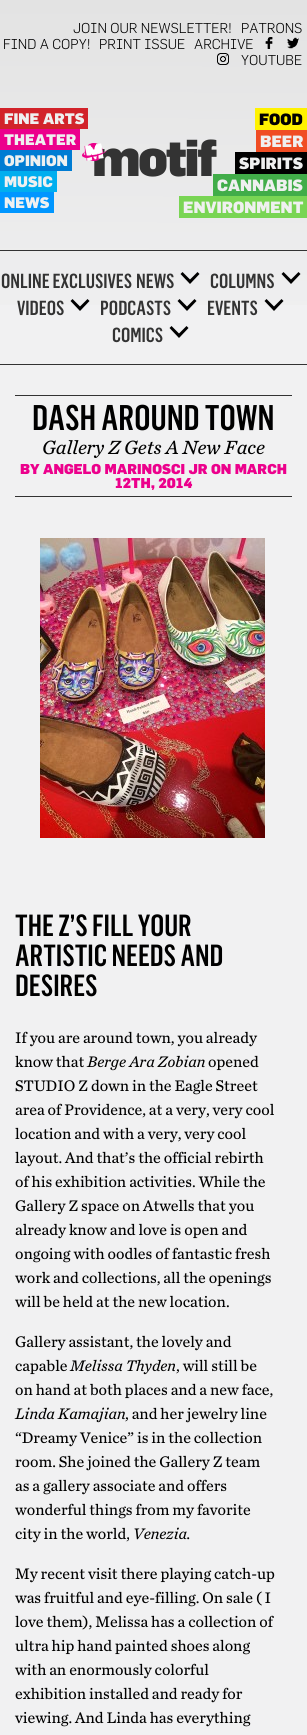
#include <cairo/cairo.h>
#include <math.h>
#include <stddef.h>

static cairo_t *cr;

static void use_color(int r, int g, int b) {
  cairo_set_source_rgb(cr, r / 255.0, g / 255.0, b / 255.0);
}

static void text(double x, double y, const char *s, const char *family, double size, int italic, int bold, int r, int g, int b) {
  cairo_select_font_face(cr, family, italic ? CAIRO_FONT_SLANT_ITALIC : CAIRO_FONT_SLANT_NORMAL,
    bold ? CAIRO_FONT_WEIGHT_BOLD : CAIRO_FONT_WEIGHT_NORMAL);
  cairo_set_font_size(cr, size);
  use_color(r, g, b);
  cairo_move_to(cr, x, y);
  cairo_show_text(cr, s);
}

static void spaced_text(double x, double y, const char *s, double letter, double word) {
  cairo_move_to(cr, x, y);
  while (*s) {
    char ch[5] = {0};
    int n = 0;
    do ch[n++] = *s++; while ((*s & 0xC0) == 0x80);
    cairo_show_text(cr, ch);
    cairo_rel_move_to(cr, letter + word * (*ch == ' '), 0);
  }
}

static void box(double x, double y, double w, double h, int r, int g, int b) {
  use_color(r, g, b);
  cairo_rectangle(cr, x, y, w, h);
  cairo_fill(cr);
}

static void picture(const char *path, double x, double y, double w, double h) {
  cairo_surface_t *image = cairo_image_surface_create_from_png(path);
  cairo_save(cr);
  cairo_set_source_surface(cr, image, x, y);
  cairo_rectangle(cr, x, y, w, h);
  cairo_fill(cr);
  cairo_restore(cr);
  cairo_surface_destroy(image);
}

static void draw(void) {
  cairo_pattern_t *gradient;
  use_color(241, 241, 242);
  cairo_paint(cr);
  gradient = cairo_pattern_create_linear(154, 0, 153, 365);
  cairo_pattern_add_color_stop_rgba(gradient, 0, 0.89, 0.89, 0.89, 1);
  cairo_pattern_add_color_stop_rgba(gradient, 1, 0.945, 0.945, 0.949, 1);
  cairo_set_source(cr, gradient);
  cairo_pattern_destroy(gradient);
  cairo_rectangle(cr, 0, 0, 307, 305);
  cairo_fill(cr);
  picture("img_01.png", 265, 37, 8, 12);
  picture("img_02.png", 287, 37, 12, 12);
  picture("img_03.png", 217, 53, 12, 12);
  box(0, 108, 88, 21, 210, 35, 42);
  box(0, 129, 80, 21, 236, 0, 140);
  box(0, 150, 72, 21, 0, 124, 211);
  box(0, 171, 57, 21, 0, 174, 239);
  box(0, 192, 54, 21, 0, 150, 255);
  box(255, 108, 52, 22, 255, 242, 0);
  box(256, 130, 51, 22, 240, 76, 35);
  box(235, 152, 72, 22, 0, 0, 0);
  box(213, 174, 94, 22, 65, 173, 73);
  box(179, 196, 128, 22, 121, 213, 84);
  box(0, 250, 307, 1, 51, 51, 51);
  box(0, 364, 307, 1, 51, 51, 51);
  use_color(0, 0, 0);
  cairo_new_path(cr);
  cairo_move_to(cr, 182.5, 272);
  cairo_line_to(cr, 180.5, 274);
  cairo_line_to(cr, 190, 284);
  cairo_line_to(cr, 199.5, 274);
  cairo_line_to(cr, 197.5, 272);
  cairo_line_to(cr, 190, 279.5);
  cairo_close_path(cr);
  cairo_fill(cr);
  cairo_new_path(cr);
  cairo_move_to(cr, 283.5, 272);
  cairo_line_to(cr, 281.5, 274);
  cairo_line_to(cr, 291, 284);
  cairo_line_to(cr, 300.5, 274);
  cairo_line_to(cr, 298.5, 272);
  cairo_line_to(cr, 291, 279.5);
  cairo_close_path(cr);
  cairo_fill(cr);
  cairo_new_path(cr);
  cairo_move_to(cr, 72.5, 299);
  cairo_line_to(cr, 70.5, 301);
  cairo_line_to(cr, 80, 311);
  cairo_line_to(cr, 89.5, 301);
  cairo_line_to(cr, 87.5, 299);
  cairo_line_to(cr, 80, 306.5);
  cairo_close_path(cr);
  cairo_fill(cr);
  cairo_new_path(cr);
  cairo_move_to(cr, 179.5, 299);
  cairo_line_to(cr, 177.5, 301);
  cairo_line_to(cr, 187, 311);
  cairo_line_to(cr, 196.5, 301);
  cairo_line_to(cr, 194.5, 299);
  cairo_line_to(cr, 187, 306.5);
  cairo_close_path(cr);
  cairo_fill(cr);
  cairo_new_path(cr);
  cairo_move_to(cr, 266.5, 299);
  cairo_line_to(cr, 264.5, 301);
  cairo_line_to(cr, 274, 311);
  cairo_line_to(cr, 283.5, 301);
  cairo_line_to(cr, 281.5, 299);
  cairo_line_to(cr, 274, 306.5);
  cairo_close_path(cr);
  cairo_fill(cr);
  cairo_new_path(cr);
  cairo_move_to(cr, 171.5, 326);
  cairo_line_to(cr, 169.5, 328);
  cairo_line_to(cr, 179, 338);
  cairo_line_to(cr, 188.5, 328);
  cairo_line_to(cr, 186.5, 326);
  cairo_line_to(cr, 179, 333.5);
  cairo_close_path(cr);
  cairo_fill(cr);
  box(15, 395, 277, 1, 51, 51, 51);
  box(15, 496, 277, 1, 51, 51, 51);
  picture("img_05.png", 40, 538, 225, 300);
  text(73, 33, "JOIN OUR NEWSLETTER!", "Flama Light", 14, 0, 0, 0, 0, 0);
  text(241, 33, "PATRONS", "Flama Light", 14, 0, 0, 0, 0, 0);
  text(3, 49, "FIND A COPY!", "Flama Light", 14, 0, 0, 0, 0, 0);
  text(99, 49, "PRINT ISSUE", "Flama Light", 14, 0, 0, 0, 0, 0);
  text(194, 49, "ARCHIVE", "Flama Light", 14, 0, 0, 0, 0, 0);
  text(241, 65, "YOUTUBE", "Flama Light", 14, 0, 0, 0, 0, 0);
  text(4, 124, "FINE ARTS", "Flama Black", 15, 0, 0, 239, 240, 240);
  text(4, 145, "THEATER", "Flama Black", 15, 0, 0, 239, 240, 240);
  text(4, 166, "OPINION", "Flama Black", 15, 0, 0, 239, 240, 240);
  text(4, 187, "MUSIC", "Flama Black", 15, 0, 0, 239, 240, 240);
  text(4, 208, "NEWS", "Flama Black", 15, 0, 0, 239, 240, 240);
  cairo_set_font_size(cr, 50);
  use_color(51, 51, 51);
  spaced_text(92, 176, "motif", -2.5, 0);
  picture("img_04.png", 82, 143, 25, 18);
  text(259, 125, "FOOD", "Flama Black", 16, 0, 0, 0, 0, 0);
  text(260, 147, "BEER", "Flama Black", 16, 0, 0, 239, 240, 240);
  text(239, 169, "SPIRITS", "Flama Black", 16, 0, 0, 239, 240, 240);
  text(217, 191, "CANNABIS", "Flama Black", 16, 0, 0, 239, 240, 240);
  text(183, 213, "ENVIRONMENT", "Flama Black", 16, 0, 0, 239, 240, 240);
  text(1, 288, "ONLINE EXCLUSIVES", "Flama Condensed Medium", 20, 0, 0, 51, 51, 51);
  text(136, 288, "NEWS", "Flama Condensed Medium", 20, 0, 0, 51, 51, 51);
  text(210, 288, "COLUMNS", "Flama Condensed Medium", 20, 0, 0, 51, 51, 51);
  text(17, 315, "VIDEOS", "Flama Condensed Medium", 20, 0, 0, 51, 51, 51);
  text(100, 315, "PODCASTS", "Flama Condensed Medium", 20, 0, 0, 51, 51, 51);
  text(207, 315, "EVENTS", "Flama Condensed Medium", 20, 0, 0, 51, 51, 51);
  text(112, 342, "COMICS", "Flama Condensed Medium", 20, 0, 0, 51, 51, 51);
  text(32, 430, "DASH AROUND TOWN", "Flama Condensed Medium", 35, 0, 0, 0, 0, 0);
  text(42, 454, "Gallery Z Gets A New Face", "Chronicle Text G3 Light", 20, 1, 0, 0, 0, 0);
  text(20, 474, "BY ANGELO MARINOSCI JR ON MARCH", "Flama Black", 14, 0, 0, 236, 0, 140);
  text(115, 488, "12TH, 2014", "Flama Black", 14, 0, 0, 236, 0, 140);
  text(15, 936, "THE Z’S FILL YOUR", "Flama Condensed Medium", 30, 0, 0, 0, 0, 0);
  text(15, 966, "ARTISTIC NEEDS AND", "Flama Condensed Medium", 30, 0, 0, 0, 0, 0);
  text(15, 996, "DESIRES", "Flama Condensed Medium", 30, 0, 0, 0, 0, 0);
  text(15, 1043, "If you are around town, you already", "Chronicle Text G3", 16, 0, 0, 0, 0, 0);
  text(15, 1067, "know that", "Chronicle Text G3", 16, 0, 0, 0, 0, 0);
  text(87, 1067, "Berge Ara Zobian", "Chronicle Text G3 Light", 16, 1, 0, 0, 0, 0);
  text(208, 1067, "opened", "Chronicle Text G3", 16, 0, 0, 0, 0, 0);
  text(15, 1091, "STUDIO Z down in the Eagle Street", "Chronicle Text G3", 16, 0, 0, 0, 0, 0);
  text(15, 1115, "area of Providence, at a very, very cool", "Chronicle Text G3", 16, 0, 0, 0, 0, 0);
  text(15, 1139, "location and with a very, very cool", "Chronicle Text G3", 16, 0, 0, 0, 0, 0);
  text(15, 1163, "layout. And that’s the official rebirth", "Chronicle Text G3", 16, 0, 0, 0, 0, 0);
  text(15, 1187, "of his exhibition activities. While the", "Chronicle Text G3", 16, 0, 0, 0, 0, 0);
  text(15, 1211, "Gallery Z space on Atwells that you", "Chronicle Text G3", 16, 0, 0, 0, 0, 0);
  text(15, 1235, "already know and love is open and", "Chronicle Text G3", 16, 0, 0, 0, 0, 0);
  text(15, 1259, "ongoing with oodles of fantastic fresh", "Chronicle Text G3", 16, 0, 0, 0, 0, 0);
  text(15, 1283, "work and collections, all the openings", "Chronicle Text G3", 16, 0, 0, 0, 0, 0);
  text(15, 1307, "will be held at the new location.", "Chronicle Text G3", 16, 0, 0, 0, 0, 0);
  text(15, 1347, "Gallery assistant, the lovely and", "Chronicle Text G3", 16, 0, 0, 0, 0, 0);
  text(15, 1371, "capable", "Chronicle Text G3", 16, 0, 0, 0, 0, 0);
  text(70, 1371, "Melissa Thyden", "Chronicle Text G3 Light", 16, 1, 0, 0, 0, 0);
  text(176, 1371, ", will still be", "Chronicle Text G3", 16, 0, 0, 0, 0, 0);
  text(15, 1395, "on hand at both places and a new face,", "Chronicle Text G3", 16, 0, 0, 0, 0, 0);
  text(15, 1419, "Linda Kamajian", "Chronicle Text G3 Light", 16, 1, 0, 0, 0, 0);
  text(125, 1419, ", and her jewelry line", "Chronicle Text G3", 16, 0, 0, 0, 0, 0);
  text(15, 1443, "“Dreamy Venice” is in the collection", "Chronicle Text G3", 16, 0, 0, 0, 0, 0);
  text(15, 1467, "room. She joined the Gallery Z team", "Chronicle Text G3", 16, 0, 0, 0, 0, 0);
  text(15, 1491, "as a gallery associate and offers", "Chronicle Text G3", 16, 0, 0, 0, 0, 0);
  text(15, 1515, "wonderful things from my favorite", "Chronicle Text G3", 16, 0, 0, 0, 0, 0);
  text(15, 1539, "city in the world,", "Chronicle Text G3", 16, 0, 0, 0, 0, 0);
  text(133, 1539, "Venezia.", "Chronicle Text G3 Light", 16, 1, 0, 0, 0, 0);
  text(15, 1579, "My recent visit there playing catch-up", "Chronicle Text G3", 16, 0, 0, 0, 0, 0);
  text(15, 1603, "was fruitful and eye-filling. On sale ( I", "Chronicle Text G3", 16, 0, 0, 0, 0, 0);
  text(15, 1627, "love them), Melissa has a collection of", "Chronicle Text G3", 16, 0, 0, 0, 0, 0);
  text(15, 1651, "ultra hip hand painted shoes along", "Chronicle Text G3", 16, 0, 0, 0, 0, 0);
  text(15, 1675, "with an enormously colorful", "Chronicle Text G3", 16, 0, 0, 0, 0, 0);
  text(15, 1699, "exhibition installed and ready for", "Chronicle Text G3", 16, 0, 0, 0, 0, 0);
  text(15, 1723, "viewing. And Linda has everything", "Chronicle Text G3", 16, 0, 0, 0, 0, 0);
}

int main(void) {
  cairo_surface_t *surface = cairo_image_surface_create(CAIRO_FORMAT_RGB24, 307, 1735);
  cr = cairo_create(surface);
  cairo_font_options_t *options = cairo_font_options_create();
  cairo_font_options_set_hint_metrics(options, CAIRO_HINT_METRICS_OFF);
  cairo_font_options_set_hint_style(options, CAIRO_HINT_STYLE_NONE);
  cairo_set_font_options(cr, options);
  cairo_set_miter_limit(cr, 4);
  draw();
  cairo_surface_write_to_png(surface, "out.png");
  cairo_font_options_destroy(options);
  cairo_destroy(cr);
  cairo_surface_destroy(surface);
  return 0;
}
